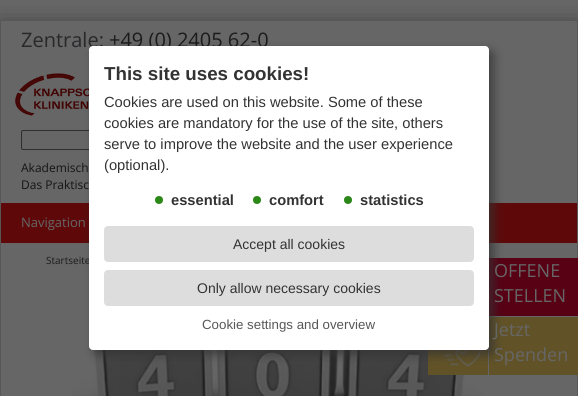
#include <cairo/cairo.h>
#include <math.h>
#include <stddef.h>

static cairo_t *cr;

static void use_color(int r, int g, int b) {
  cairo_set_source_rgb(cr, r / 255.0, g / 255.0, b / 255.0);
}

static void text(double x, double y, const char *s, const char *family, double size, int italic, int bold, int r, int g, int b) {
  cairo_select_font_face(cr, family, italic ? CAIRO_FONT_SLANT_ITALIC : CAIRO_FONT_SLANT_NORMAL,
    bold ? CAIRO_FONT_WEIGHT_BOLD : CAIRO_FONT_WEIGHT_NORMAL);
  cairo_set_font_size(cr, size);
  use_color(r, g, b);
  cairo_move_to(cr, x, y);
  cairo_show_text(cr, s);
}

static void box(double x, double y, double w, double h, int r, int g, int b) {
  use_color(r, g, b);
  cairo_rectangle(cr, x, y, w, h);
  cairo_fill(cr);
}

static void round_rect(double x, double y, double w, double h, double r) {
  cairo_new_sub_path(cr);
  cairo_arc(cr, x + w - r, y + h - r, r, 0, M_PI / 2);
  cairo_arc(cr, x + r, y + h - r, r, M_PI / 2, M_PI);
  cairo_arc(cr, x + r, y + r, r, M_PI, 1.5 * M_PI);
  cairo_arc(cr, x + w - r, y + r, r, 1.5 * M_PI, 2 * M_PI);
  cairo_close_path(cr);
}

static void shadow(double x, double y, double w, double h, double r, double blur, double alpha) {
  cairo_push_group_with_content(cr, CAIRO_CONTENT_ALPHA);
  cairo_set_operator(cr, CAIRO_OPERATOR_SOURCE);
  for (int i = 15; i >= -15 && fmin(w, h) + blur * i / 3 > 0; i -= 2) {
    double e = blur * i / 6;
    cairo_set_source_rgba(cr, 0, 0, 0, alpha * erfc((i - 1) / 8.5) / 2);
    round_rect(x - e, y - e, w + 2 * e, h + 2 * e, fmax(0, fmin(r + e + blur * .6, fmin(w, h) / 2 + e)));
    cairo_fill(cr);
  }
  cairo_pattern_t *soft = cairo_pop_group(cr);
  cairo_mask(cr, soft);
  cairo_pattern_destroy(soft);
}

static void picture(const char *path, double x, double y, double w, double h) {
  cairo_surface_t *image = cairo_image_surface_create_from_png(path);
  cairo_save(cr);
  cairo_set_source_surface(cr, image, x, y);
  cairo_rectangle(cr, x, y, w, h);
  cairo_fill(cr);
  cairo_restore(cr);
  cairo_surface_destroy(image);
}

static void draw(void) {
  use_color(102, 102, 102);
  cairo_paint(cr);
  cairo_save(cr);
  cairo_rectangle(cr, 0, 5, 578, 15);
  cairo_clip(cr);
  use_color(0, 0, 0);
  shadow(0, 28, 578, 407, 0, 13, 0.5);
  cairo_restore(cr);
  cairo_rectangle(cr, 0.5, 20.5, 577, 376);
  use_color(87, 87, 87);
  cairo_set_line_width(cr, 1);
  cairo_stroke(cr);
  picture("img_01.png", 15, 73, 74, 44);
  round_rect(21.5, 130.5, 232, 19, 1.5);
  use_color(47, 47, 47);
  cairo_stroke(cr);
  box(1, 203, 576, 40, 94, 8, 9);
  picture("img_02.png", 70, 293, 415, 103);
  box(489, 258, 89, 58, 88, 0, 20);
  box(428, 317, 150, 58, 97, 82, 39);
  picture("img_03.png", 439, 350, 43, 17);
  box(577, 316, 1, 1, 102, 102, 102);
  box(488, 346, 1, 29, 102, 102, 102);
  use_color(50, 50, 50);
  shadow(94, 51, 400, 304, 4, 5, 0.75);
  text(21, 47, "Zentrale:", "Open Sans", 20, 0, 0, 40, 40, 42);
  text(109, 47, "+49 (0) 2405 62-0", "Open Sans", 20, 0, 0, 27, 27, 27);
  text(21, 172, "Akademisch", "Open Sans", 12, 0, 0, 20, 20, 20);
  text(21, 189, "Das Praktisc", "Open Sans", 12, 0, 0, 20, 20, 20);
  text(21, 227, "Navigation", "Open Sans", 13, 0, 0, 102, 102, 102);
  text(46, 264, "Startseite", "Open Sans", 10, 0, 0, 27, 27, 27);
  text(494, 277, "OFFENE", "Open Sans", 18, 0, 0, 102, 102, 102);
  text(494, 302, "STELLEN", "Open Sans", 18, 0, 0, 102, 102, 102);
  text(494, 336, "Jetzt", "Open Sans", 18, 0, 0, 102, 102, 102);
  text(494, 361, "Spenden", "Open Sans", 18, 0, 0, 102, 102, 102);
  use_color(255, 255, 255);
  round_rect(89, 46, 400, 304, 4);
  cairo_fill(cr);
  text(104, 80, "This site uses cookies!", "Liberation Sans", 18.75, 0, 1, 51, 51, 51);
  text(104, 107, "Cookies are used on this website. Some of these", "Liberation Sans", 14.7, 0, 0, 51, 51, 51);
  text(104, 128, "cookies are mandatory for the use of the site, others", "Liberation Sans", 14.7, 0, 0, 51, 51, 51);
  text(104, 149, "serve to improve the website and the user experience", "Liberation Sans", 14.7, 0, 0, 51, 51, 51);
  text(104, 170, "(optional).", "Liberation Sans", 14.7, 0, 0, 51, 51, 51);
  use_color(43, 135, 24);
  cairo_new_path(cr);
  cairo_arc(cr, 159, 200, 4, 0, 2 * M_PI);
  cairo_fill(cr);
  text(171, 205, "essential", "Liberation Sans", 14.7, 0, 1, 51, 51, 51);
  use_color(43, 135, 24);
  cairo_new_path(cr);
  cairo_arc(cr, 257, 200, 4, 0, 2 * M_PI);
  cairo_fill(cr);
  text(269, 205, "comfort", "Liberation Sans", 14.7, 0, 1, 51, 51, 51);
  use_color(43, 135, 24);
  cairo_new_path(cr);
  cairo_arc(cr, 348, 200, 4, 0, 2 * M_PI);
  cairo_fill(cr);
  text(360, 205, "statistics", "Liberation Sans", 14.7, 0, 1, 51, 51, 51);
  use_color(221, 221, 221);
  round_rect(104, 226, 370, 36, 4);
  cairo_fill(cr);
  text(233, 249, "Accept all cookies", "Liberation Sans", 14, 0, 0, 51, 51, 51);
  use_color(221, 221, 221);
  round_rect(104, 270, 370, 36, 4);
  cairo_fill(cr);
  text(197, 293, "Only allow necessary cookies", "Liberation Sans", 14, 0, 0, 51, 51, 51);
  text(202, 329, "Cookie settings and overview", "Liberation Sans", 13.3, 0, 0, 87, 87, 87);
}

int main(void) {
  cairo_surface_t *surface = cairo_image_surface_create(CAIRO_FORMAT_RGB24, 578, 396);
  cr = cairo_create(surface);
  cairo_font_options_t *options = cairo_font_options_create();
  cairo_font_options_set_hint_metrics(options, CAIRO_HINT_METRICS_OFF);
  cairo_font_options_set_hint_style(options, CAIRO_HINT_STYLE_NONE);
  cairo_set_font_options(cr, options);
  cairo_set_miter_limit(cr, 4);
  draw();
  cairo_surface_write_to_png(surface, "out.png");
  cairo_font_options_destroy(options);
  cairo_destroy(cr);
  cairo_surface_destroy(surface);
  return 0;
}
